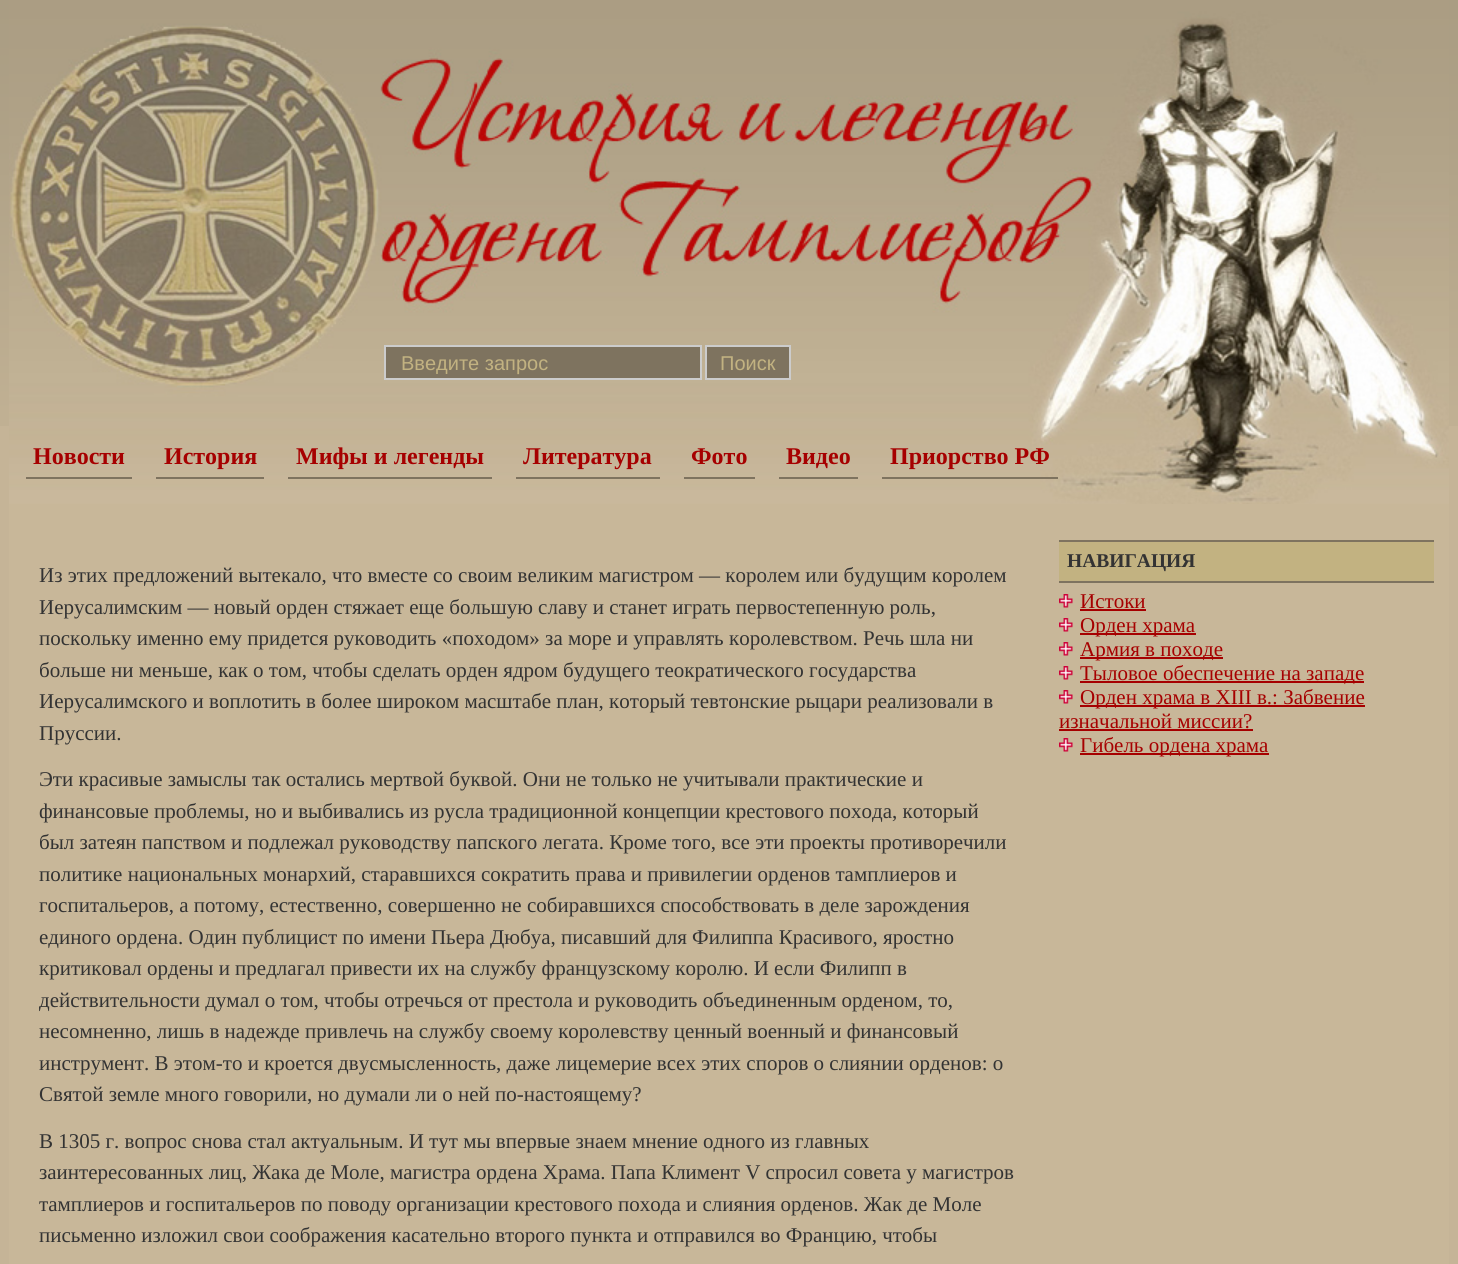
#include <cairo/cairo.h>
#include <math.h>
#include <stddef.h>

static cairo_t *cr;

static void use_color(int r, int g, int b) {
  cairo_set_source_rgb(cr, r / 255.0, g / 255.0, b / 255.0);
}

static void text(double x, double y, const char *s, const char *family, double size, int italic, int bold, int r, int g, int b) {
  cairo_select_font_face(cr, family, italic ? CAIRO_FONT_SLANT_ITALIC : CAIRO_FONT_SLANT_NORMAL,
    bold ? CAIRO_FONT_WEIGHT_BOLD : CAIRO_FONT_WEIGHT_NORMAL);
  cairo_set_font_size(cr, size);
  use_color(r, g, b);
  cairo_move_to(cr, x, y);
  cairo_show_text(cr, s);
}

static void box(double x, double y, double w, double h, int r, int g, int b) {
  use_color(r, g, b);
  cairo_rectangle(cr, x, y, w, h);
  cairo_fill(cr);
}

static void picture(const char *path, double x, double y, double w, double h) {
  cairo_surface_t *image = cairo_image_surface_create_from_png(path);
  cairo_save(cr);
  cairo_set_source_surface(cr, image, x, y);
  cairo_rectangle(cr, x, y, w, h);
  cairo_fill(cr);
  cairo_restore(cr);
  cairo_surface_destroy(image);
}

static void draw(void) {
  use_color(197, 180, 151);
  cairo_paint(cr);
  picture("img_01.png", 0, 0, 1458, 426);
  box(9, 504, 1440, 760, 200, 183, 153);
  picture("img_02.png", 9, 0, 1440, 504);
  use_color(126, 115, 95);
  cairo_rectangle(cr, 385, 346, 316, 33);
  cairo_fill_preserve(cr);
  use_color(204, 204, 204);
  cairo_stroke(cr);
  use_color(126, 115, 95);
  cairo_rectangle(cr, 706, 346, 84, 33);
  cairo_fill_preserve(cr);
  use_color(204, 204, 204);
  cairo_stroke(cr);
  box(26, 477, 106, 2, 126, 115, 95);
  box(156, 477, 108, 2, 126, 115, 95);
  box(288, 477, 204, 2, 126, 115, 95);
  box(516, 477, 144, 2, 126, 115, 95);
  box(684, 477, 71, 2, 126, 115, 95);
  box(779, 477, 79, 2, 126, 115, 95);
  box(882, 477, 176, 2, 126, 115, 95);
  box(1059, 542, 375, 39, 194, 178, 129);
  box(1059, 540, 375, 2, 126, 115, 95);
  box(1059, 581, 375, 2, 126, 115, 95);
  picture("img_03.png", 1059, 594, 14, 14);
  box(1080, 609, 66, 2, 166, 0, 0);
  picture("img_03.png", 1059, 618, 14, 14);
  box(1080, 633, 116, 2, 166, 0, 0);
  picture("img_03.png", 1059, 642, 14, 14);
  box(1080, 657, 143, 2, 166, 0, 0);
  picture("img_03.png", 1059, 666, 14, 14);
  box(1080, 681, 284, 2, 166, 0, 0);
  picture("img_03.png", 1059, 690, 14, 14);
  box(1080, 705, 285, 2, 166, 0, 0);
  box(1059, 729, 194, 2, 166, 0, 0);
  picture("img_03.png", 1059, 738, 14, 14);
  box(1080, 753, 189, 2, 166, 0, 0);
  text(401, 370, "Введите запрос", "Liberation Sans", 20, 0, 0, 194, 178, 129);
  text(720, 370, "Поиск", "Liberation Sans", 20, 0, 0, 194, 178, 129);
  text(33, 464, "Новости", "Liberation Serif", 24, 0, 1, 166, 0, 0);
  text(164, 464, "История", "Liberation Serif", 24, 0, 1, 166, 0, 0);
  text(296, 464, "Мифы и легенды", "Liberation Serif", 24, 0, 1, 166, 0, 0);
  text(523, 464, "Литература", "Liberation Serif", 24, 0, 1, 166, 0, 0);
  text(691, 464, "Фото", "Liberation Serif", 24, 0, 1, 166, 0, 0);
  text(786, 464, "Видео", "Liberation Serif", 24, 0, 1, 166, 0, 0);
  text(890, 464, "Приорство РФ", "Liberation Serif", 24, 0, 1, 166, 0, 0);
  text(39, 582, "Из этих предложений вытекало, что вместе со своим великим магистром — королем или будущим королем", "Liberation Serif", 21, 0, 0, 51, 51, 51);
  text(39, 614, "Иерусалимским — новый орден стяжает еще большую славу и станет играть первостепенную роль,", "Liberation Serif", 21, 0, 0, 51, 51, 51);
  text(39, 645, "поскольку именно ему придется руководить «походом» за море и управлять королевством. Речь шла ни", "Liberation Serif", 21, 0, 0, 51, 51, 51);
  text(39, 677, "больше ни меньше, как о том, чтобы сделать орден ядром будущего теократического государства", "Liberation Serif", 21, 0, 0, 51, 51, 51);
  text(39, 708, "Иерусалимского и воплотить в более широком масштабе план, который тевтонские рыцари реализовали в", "Liberation Serif", 21, 0, 0, 51, 51, 51);
  text(39, 740, "Пруссии.", "Liberation Serif", 21, 0, 0, 51, 51, 51);
  text(39, 786, "Эти красивые замыслы так остались мертвой буквой. Они не только не учитывали практические и", "Liberation Serif", 21, 0, 0, 51, 51, 51);
  text(39, 818, "финансовые проблемы, но и выбивались из русла традиционной концепции крестового похода, который", "Liberation Serif", 21, 0, 0, 51, 51, 51);
  text(39, 849, "был затеян папством и подлежал руководству папского легата. Кроме того, все эти проекты противоречили", "Liberation Serif", 21, 0, 0, 51, 51, 51);
  text(39, 881, "политике национальных монархий, старавшихся сократить права и привилегии орденов тамплиеров и", "Liberation Serif", 21, 0, 0, 51, 51, 51);
  text(39, 912, "госпитальеров, а потому, естественно, совершенно не собиравшихся способствовать в деле зарождения", "Liberation Serif", 21, 0, 0, 51, 51, 51);
  text(39, 944, "единого ордена. Один публицист по имени Пьера Дюбуа, писавший для Филиппа Красивого, яростно", "Liberation Serif", 21, 0, 0, 51, 51, 51);
  text(39, 975, "критиковал ордены и предлагал привести их на службу французскому королю. И если Филипп в", "Liberation Serif", 21, 0, 0, 51, 51, 51);
  text(39, 1007, "действительности думал о том, чтобы отречься от престола и руководить объединенным орденом, то,", "Liberation Serif", 21, 0, 0, 51, 51, 51);
  text(39, 1038, "несомненно, лишь в надежде привлечь на службу своему королевству ценный военный и финансовый", "Liberation Serif", 21, 0, 0, 51, 51, 51);
  text(39, 1070, "инструмент. В этом-то и кроется двусмысленность, даже лицемерие всех этих споров о слиянии орденов: о", "Liberation Serif", 21, 0, 0, 51, 51, 51);
  text(39, 1101, "Святой земле много говорили, но думали ли о ней по-настоящему?", "Liberation Serif", 21, 0, 0, 51, 51, 51);
  text(39, 1148, "В 1305 г. вопрос снова стал актуальным. И тут мы впервые знаем мнение одного из главных", "Liberation Serif", 21, 0, 0, 51, 51, 51);
  text(39, 1179, "заинтересованных лиц, Жака де Моле, магистра ордена Храма. Папа Климент V спросил совета у магистров", "Liberation Serif", 21, 0, 0, 51, 51, 51);
  text(39, 1211, "тамплиеров и госпитальеров по поводу организации крестового похода и слияния орденов. Жак де Моле", "Liberation Serif", 21, 0, 0, 51, 51, 51);
  text(39, 1242, "письменно изложил свои соображения касательно второго пункта и отправился во Францию, чтобы", "Liberation Serif", 21, 0, 0, 51, 51, 51);
  text(1067, 567, "НАВИГАЦИЯ", "Liberation Serif", 19.5, 0, 1, 51, 51, 51);
  text(1080, 608, "Истоки", "Liberation Serif", 21, 0, 0, 166, 0, 0);
  text(1080, 632, "Орден храма", "Liberation Serif", 21, 0, 0, 166, 0, 0);
  text(1080, 656, "Армия в походе", "Liberation Serif", 21, 0, 0, 166, 0, 0);
  text(1080, 680, "Тыловое обеспечение на западе", "Liberation Serif", 21, 0, 0, 166, 0, 0);
  text(1080, 704, "Орден храма в XIII в.: Забвение", "Liberation Serif", 21, 0, 0, 166, 0, 0);
  text(1059, 728, "изначальной миссии?", "Liberation Serif", 21, 0, 0, 166, 0, 0);
  text(1080, 752, "Гибель ордена храма", "Liberation Serif", 21, 0, 0, 166, 0, 0);
}

int main(void) {
  cairo_surface_t *surface = cairo_image_surface_create(CAIRO_FORMAT_RGB24, 1458, 1264);
  cr = cairo_create(surface);
  cairo_font_options_t *options = cairo_font_options_create();
  cairo_font_options_set_hint_metrics(options, CAIRO_HINT_METRICS_OFF);
  cairo_font_options_set_hint_style(options, CAIRO_HINT_STYLE_NONE);
  cairo_set_font_options(cr, options);
  cairo_set_miter_limit(cr, 4);
  draw();
  cairo_surface_write_to_png(surface, "out.png");
  cairo_font_options_destroy(options);
  cairo_destroy(cr);
  cairo_surface_destroy(surface);
  return 0;
}
